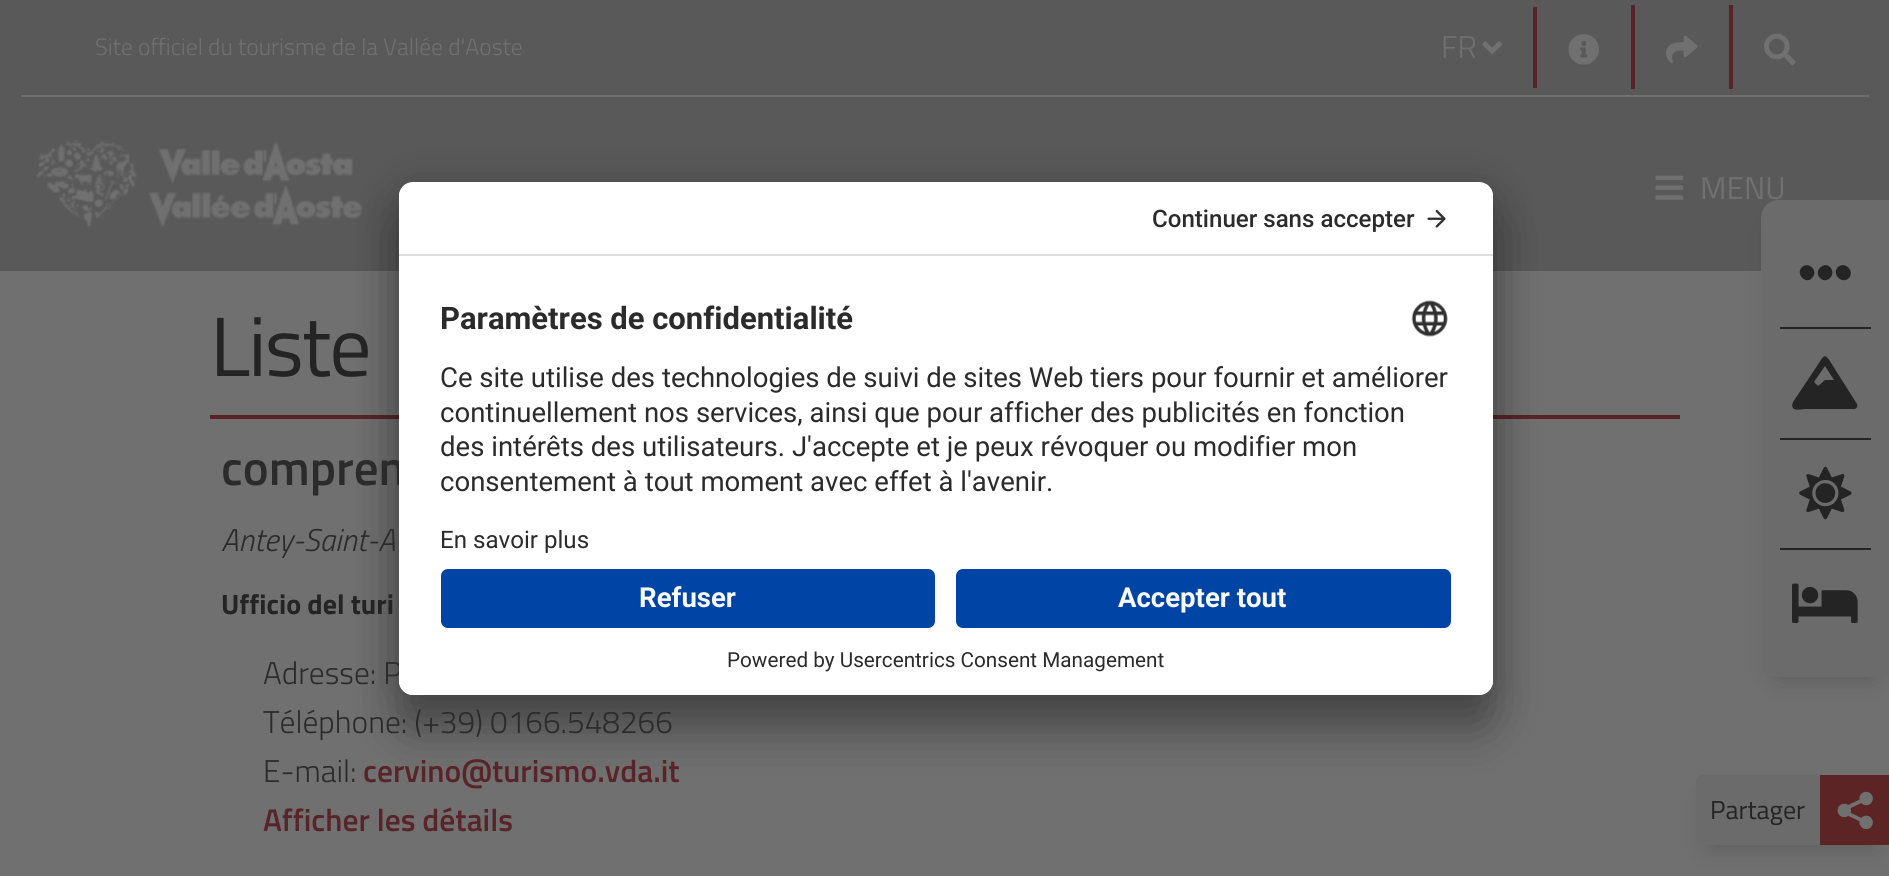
#include <cairo/cairo.h>
#include <math.h>
#include <stddef.h>

static cairo_t *cr;

static void use_color(int r, int g, int b) {
  cairo_set_source_rgb(cr, r / 255.0, g / 255.0, b / 255.0);
}

static void text(double x, double y, const char *s, const char *family, double size, int italic, int bold, int r, int g, int b) {
  cairo_select_font_face(cr, family, italic ? CAIRO_FONT_SLANT_ITALIC : CAIRO_FONT_SLANT_NORMAL,
    bold ? CAIRO_FONT_WEIGHT_BOLD : CAIRO_FONT_WEIGHT_NORMAL);
  cairo_set_font_size(cr, size);
  use_color(r, g, b);
  cairo_move_to(cr, x, y);
  cairo_show_text(cr, s);
}

static void spaced_text(double x, double y, const char *s, double letter, double word) {
  cairo_move_to(cr, x, y);
  while (*s) {
    char ch[5] = {0};
    int n = 0;
    do ch[n++] = *s++; while ((*s & 0xC0) == 0x80);
    cairo_show_text(cr, ch);
    cairo_rel_move_to(cr, letter + word * (*ch == ' '), 0);
  }
}

static void box(double x, double y, double w, double h, int r, int g, int b) {
  use_color(r, g, b);
  cairo_rectangle(cr, x, y, w, h);
  cairo_fill(cr);
}

static void round_rect(double x, double y, double w, double h, double r) {
  cairo_new_sub_path(cr);
  cairo_arc(cr, x + w - r, y + h - r, r, 0, M_PI / 2);
  cairo_arc(cr, x + r, y + h - r, r, M_PI / 2, M_PI);
  cairo_arc(cr, x + r, y + r, r, M_PI, 1.5 * M_PI);
  cairo_arc(cr, x + w - r, y + r, r, 1.5 * M_PI, 2 * M_PI);
  cairo_close_path(cr);
}

static void shadow(double x, double y, double w, double h, double r, double blur, double alpha) {
  cairo_push_group_with_content(cr, CAIRO_CONTENT_ALPHA);
  cairo_set_operator(cr, CAIRO_OPERATOR_SOURCE);
  for (int i = 15; i >= -15 && fmin(w, h) + blur * i / 3 > 0; i -= 2) {
    double e = blur * i / 6;
    cairo_set_source_rgba(cr, 0, 0, 0, alpha * erfc((i - 1) / 8.5) / 2);
    round_rect(x - e, y - e, w + 2 * e, h + 2 * e, fmax(0, fmin(r + e + blur * .6, fmin(w, h) / 2 + e)));
    cairo_fill(cr);
  }
  cairo_pattern_t *soft = cairo_pop_group(cr);
  cairo_mask(cr, soft);
  cairo_pattern_destroy(soft);
}

static void picture(const char *path, double x, double y, double w, double h) {
  cairo_surface_t *image = cairo_image_surface_create_from_png(path);
  cairo_save(cr);
  cairo_set_source_surface(cr, image, x, y);
  cairo_rectangle(cr, x, y, w, h);
  cairo_fill(cr);
  cairo_restore(cr);
  cairo_surface_destroy(image);
}

static void draw(void) {
  use_color(112, 112, 112);
  cairo_paint(cr);
  box(0, 0, 1889, 271, 89, 89, 89);
  box(21, 95, 1848, 2, 112, 112, 112);
  box(1533, 7, 4, 81, 89, 36, 41);
  picture("img_01.png", 1482, 41, 20, 13);
  box(1631, 5, 4, 84, 89, 36, 41);
  picture("img_02.png", 1568, 34, 31, 31);
  box(1729, 5, 4, 84, 89, 36, 41);
  picture("img_03.png", 1666, 35, 32, 29);
  picture("img_04.png", 1764, 33, 32, 33);
  picture("img_05.png", 36, 140, 327, 88);
  picture("img_06.png", 1655, 175, 29, 25);
  box(210, 415, 1470, 4, 89, 36, 41);
  use_color(0, 0, 0);
  shadow(399, 217, 1094, 513, 14, 24.5, 0.3);
  shadow(399, 191, 1094, 513, 14, 23, 0.22);
  use_color(36, 36, 36);
  shadow(1775, 228, 101, 449, 4, 14, 0.3);
  use_color(107, 107, 107);
  cairo_new_path(cr);
  cairo_move_to(cr, 1779, 201);
  cairo_line_to(cr, 1889, 201);
  cairo_line_to(cr, 1889, 676);
  cairo_line_to(cr, 1779, 676);
  cairo_curve_to(cr, 1769.5, 676, 1762, 668.5, 1762, 659);
  cairo_line_to(cr, 1762, 218);
  cairo_curve_to(cr, 1762, 208.5, 1769.5, 201, 1779, 201);
  cairo_close_path(cr);
  cairo_fill_preserve(cr);
  cairo_stroke(cr);
  box(1780, 327, 91, 2, 36, 36, 36);
  cairo_new_path(cr);
  cairo_move_to(cr, 1830, 267);
  cairo_curve_to(cr, 1837, 274, 1827, 285, 1820, 278);
  cairo_curve_to(cr, 1813, 271, 1824, 261, 1830, 267);
  cairo_close_path(cr);
  cairo_move_to(cr, 1838, 267);
  cairo_curve_to(cr, 1845, 261, 1855, 271, 1849, 278);
  cairo_curve_to(cr, 1842, 285, 1831, 274, 1838, 267);
  cairo_close_path(cr);
  cairo_move_to(cr, 1802, 267);
  cairo_curve_to(cr, 1809, 261, 1819, 271, 1812, 278);
  cairo_curve_to(cr, 1806, 285, 1795, 274, 1802, 267);
  cairo_close_path(cr);
  cairo_fill(cr);
  box(1780, 438, 91, 2, 36, 36, 36);
  cairo_new_path(cr);
  cairo_move_to(cr, 1857, 404);
  cairo_curve_to(cr, 1858, 406, 1857, 408, 1855, 409);
  cairo_line_to(cr, 1805, 409);
  cairo_curve_to(cr, 1803, 409, 1795, 411, 1793, 408);
  cairo_curve_to(cr, 1790, 404, 1796, 398, 1797, 396);
  cairo_line_to(cr, 1817, 366);
  cairo_curve_to(cr, 1825, 353, 1825, 353, 1833, 366);
  cairo_close_path(cr);
  cairo_move_to(cr, 1825, 366);
  cairo_line_to(cr, 1814, 382);
  cairo_line_to(cr, 1818, 386);
  cairo_line_to(cr, 1825, 380);
  cairo_line_to(cr, 1834, 380);
  cairo_close_path(cr);
  cairo_fill(cr);
  box(1780, 548, 91, 2, 36, 36, 36);
  picture("img_09.png", 1799, 466, 53, 54);
  picture("img_10.png", 1792, 583, 66, 40);
  use_color(36, 36, 36);
  shadow(1710, 803, 166, 42, 0, 14, 0.3);
  use_color(107, 107, 107);
  cairo_new_path(cr);
  cairo_move_to(cr, 1703, 775);
  cairo_line_to(cr, 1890, 775);
  cairo_line_to(cr, 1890, 845);
  cairo_line_to(cr, 1703, 845);
  cairo_curve_to(cr, 1699, 845, 1696, 842, 1696, 838);
  cairo_line_to(cr, 1696, 782);
  cairo_curve_to(cr, 1696, 778, 1699, 775, 1703, 775);
  cairo_close_path(cr);
  cairo_fill(cr);
  box(1820, 775, 69, 70, 93, 36, 37);
  picture("img_11.png", 1837, 791, 36, 39);
  text(95, 55, "Site officiel du tourisme de la Vallée d'Aoste", "Titillium Web Light", 23.6, 0, 0, 112, 112, 112);
  text(1441, 58, "FR", "Titillium Web Light", 31.5, 0, 0, 112, 112, 112);
  text(1700, 199, "MENU", "Titillium Web", 31.5, 0, 0, 112, 112, 112);
  cairo_set_font_size(cr, 84);
  use_color(36, 36, 36);
  spaced_text(210, 376, "Liste", -2, 0);
  text(221, 485, "compren", "Titillium Web SemiBold", 49, 0, 0, 43, 43, 44);
  text(221, 551, "Antey-Saint-A", "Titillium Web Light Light", 31.5, 1, 0, 43, 43, 44);
  text(221, 614, "Ufficio del turi", "Titillium Web", 28, 0, 1, 36, 36, 36);
  text(263, 684, "Adresse: P", "Titillium Web Light", 31.5, 0, 0, 43, 43, 44);
  use_color(255, 255, 255);
  round_rect(399, 182, 1094, 513, 14);
  cairo_fill(cr);
  picture("img_08.png", 1411, 300, 37, 37);
  text(440, 329, "Paramètres de confidentialité", "Roboto", 31, 0, 1, 43, 43, 44);
  text(440, 491, "consentement à tout moment avec effet à l'avenir.", "Roboto", 27.55, 0, 0, 43, 43, 44);
  text(440, 456, "des intérêts des utilisateurs. J'accepte et je peux révoquer ou modifier mon", "Roboto", 27.55, 0, 0, 43, 43, 44);
  text(440, 422, "continuellement nos services, ainsi que pour afficher des publicités en fonction", "Roboto", 27.55, 0, 0, 43, 43, 44);
  text(440, 387, "Ce site utilise des technologies de suivi de sites Web tiers pour fournir et améliorer", "Roboto", 27.55, 0, 0, 43, 43, 44);
  text(440, 548, "En savoir plus", "Roboto", 24.1, 0, 0, 43, 43, 44);
  cairo_save(cr);
  round_rect(399, 182, 1094, 513, 14);
  cairo_clip(cr);
  cairo_new_path(cr);
  cairo_move_to(cr, 413, 182);
  cairo_line_to(cr, 1479, 182);
  cairo_curve_to(cr, 1486.5, 182, 1493, 188.5, 1493, 196);
  cairo_line_to(cr, 1493, 555);
  cairo_line_to(cr, 399, 555);
  cairo_line_to(cr, 399, 196);
  cairo_curve_to(cr, 399, 188.5, 405.5, 182, 413, 182);
  cairo_close_path(cr);
  cairo_clip(cr);
  box(399, 184, 1094, 70, 255, 255, 255);
  cairo_restore(cr);
  picture("img_07.png", 1427, 209, 19, 19);
  text(1152, 227, "Continuer sans accepter", "Roboto Medium", 24.1, 0, 0, 43, 43, 44);
  box(399, 254, 1094, 2, 222, 222, 222);
  use_color(255, 255, 255);
  cairo_new_path(cr);
  cairo_move_to(cr, 399, 555);
  cairo_line_to(cr, 1493, 555);
  cairo_line_to(cr, 1493, 681);
  cairo_curve_to(cr, 1493, 688.5, 1486.5, 695, 1479, 695);
  cairo_line_to(cr, 413, 695);
  cairo_curve_to(cr, 405.5, 695, 399, 688.5, 399, 681);
  cairo_close_path(cr);
  cairo_fill(cr);
  text(727, 667, "Powered by Usercentrics Consent Management", "Roboto", 20.7, 0, 0, 43, 43, 44);
  use_color(0, 69, 165);
  round_rect(956, 569, 495, 59, 7);
  cairo_fill(cr);
  text(1118, 607, "Accepter tout", "Roboto", 27.55, 0, 1, 250, 250, 250);
  use_color(0, 69, 165);
  round_rect(441, 569, 494, 59, 7);
  cairo_fill(cr);
  text(639, 607, "Refuser", "Roboto", 27.55, 0, 1, 250, 250, 250);
  text(263, 733, "Téléphone: (+39) 0166.548266", "Titillium Web Light", 31.5, 0, 0, 43, 43, 44);
  text(263, 782, "E-mail:", "Titillium Web Light", 31.5, 0, 0, 43, 43, 44);
  text(363, 782, "cervino@turismo.vda.it", "Titillium Web SemiBold", 31.5, 0, 0, 89, 36, 41);
  text(263, 831, "Afficher les détails", "Titillium Web SemiBold", 31.5, 0, 0, 89, 36, 41);
  text(1710, 819, "Partager", "Titillium Web", 26, 0, 0, 36, 36, 36);
}

int main(void) {
  cairo_surface_t *surface = cairo_image_surface_create(CAIRO_FORMAT_RGB24, 1889, 876);
  cr = cairo_create(surface);
  cairo_font_options_t *options = cairo_font_options_create();
  cairo_font_options_set_hint_metrics(options, CAIRO_HINT_METRICS_OFF);
  cairo_font_options_set_hint_style(options, CAIRO_HINT_STYLE_NONE);
  cairo_set_font_options(cr, options);
  cairo_set_miter_limit(cr, 4);
  draw();
  cairo_surface_write_to_png(surface, "out.png");
  cairo_font_options_destroy(options);
  cairo_destroy(cr);
  cairo_surface_destroy(surface);
  return 0;
}
